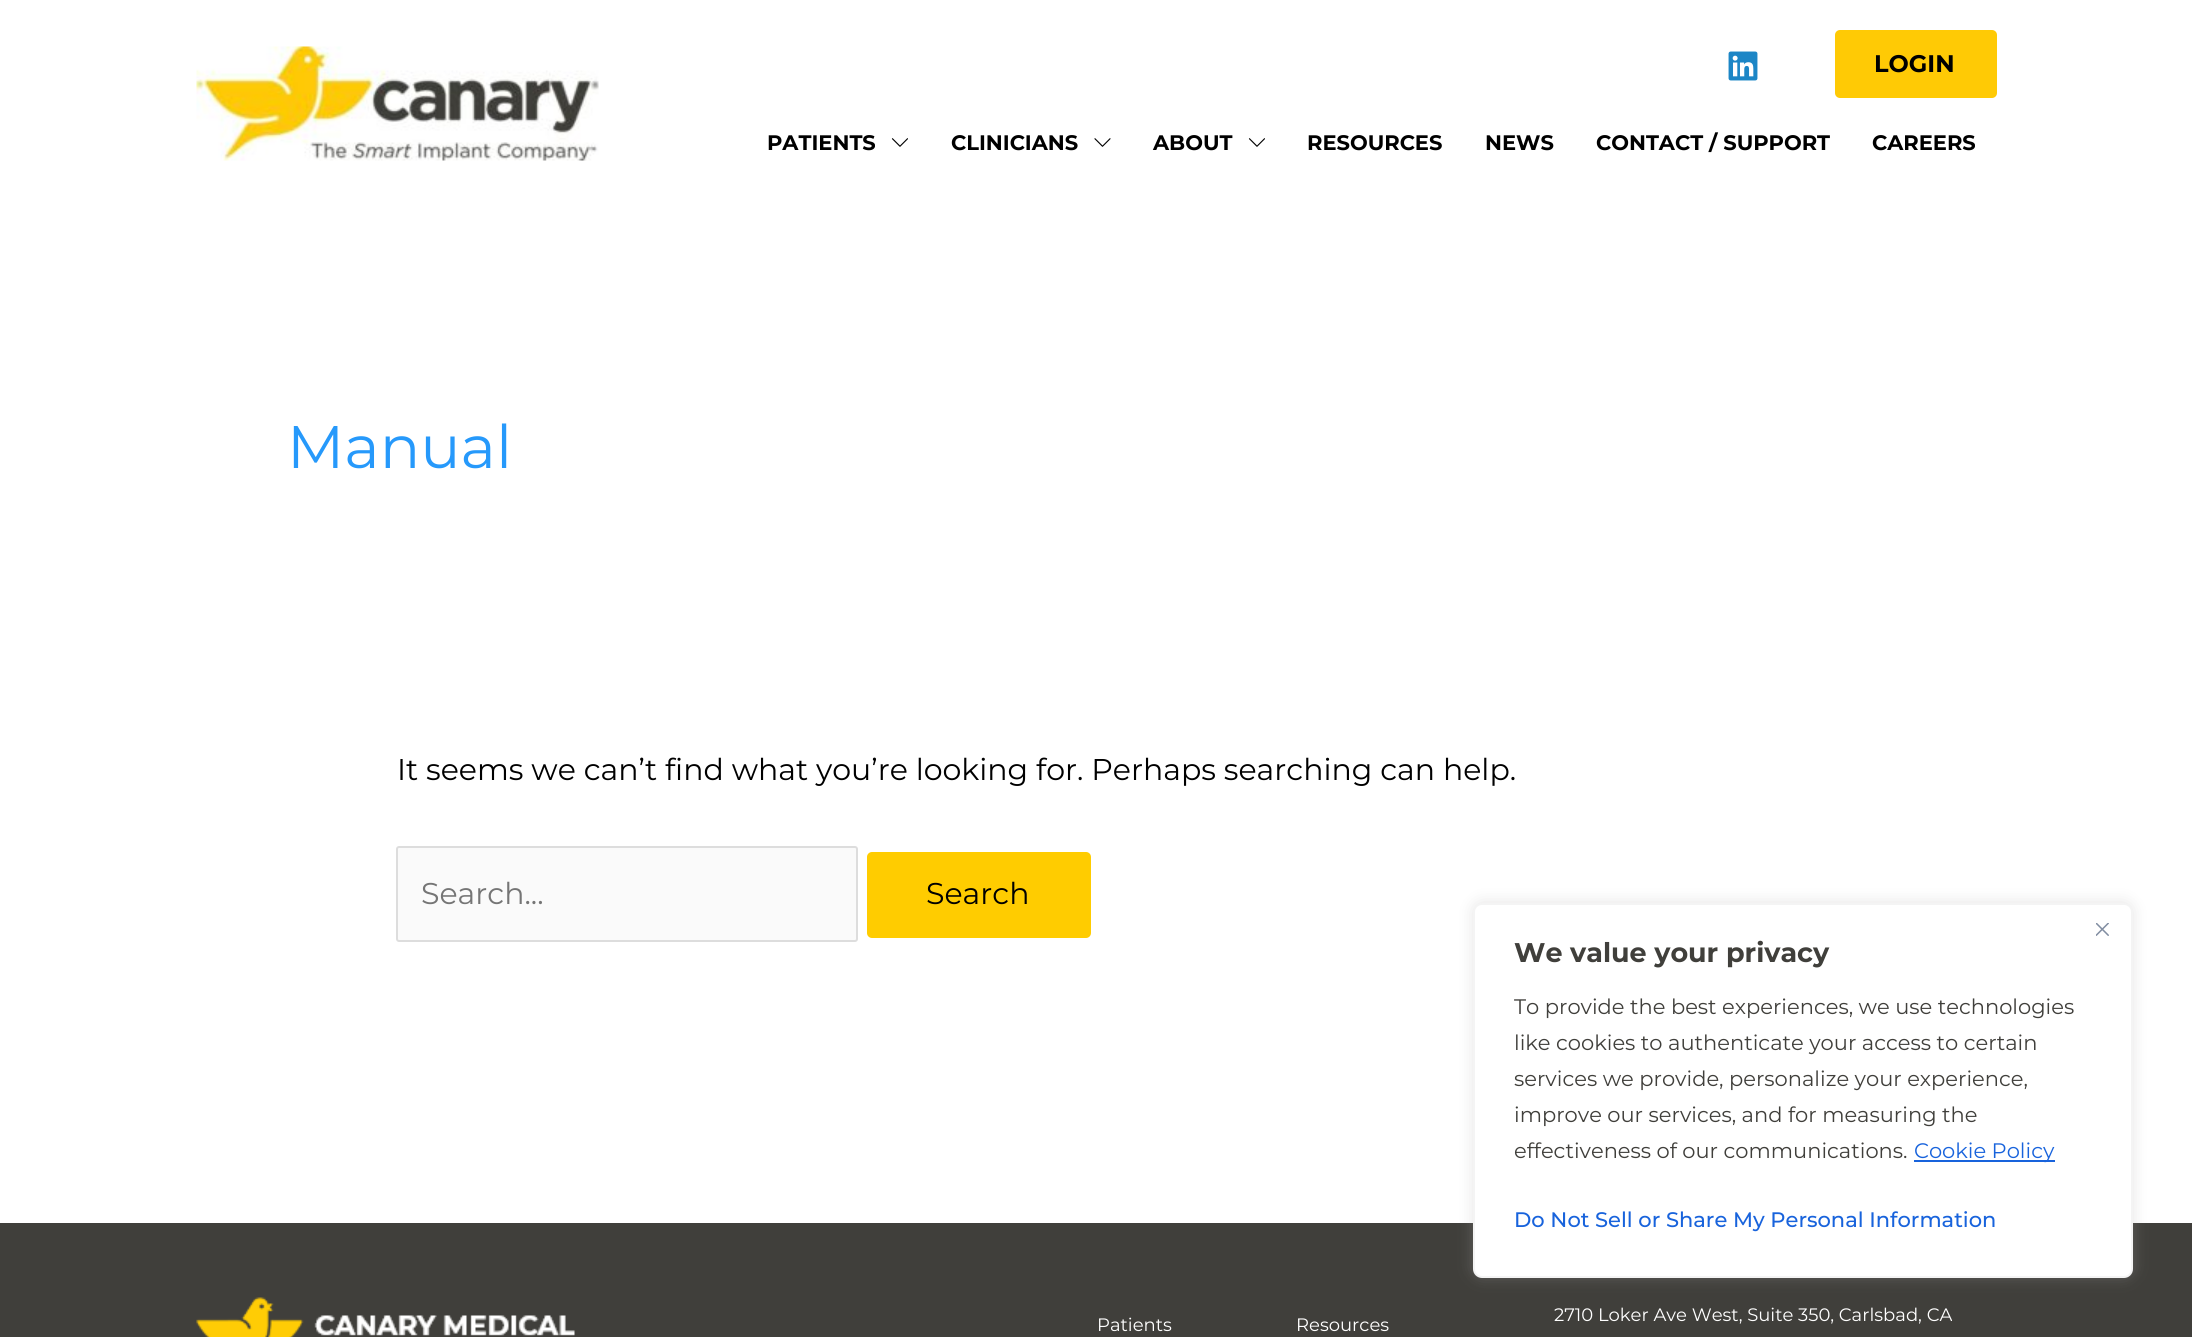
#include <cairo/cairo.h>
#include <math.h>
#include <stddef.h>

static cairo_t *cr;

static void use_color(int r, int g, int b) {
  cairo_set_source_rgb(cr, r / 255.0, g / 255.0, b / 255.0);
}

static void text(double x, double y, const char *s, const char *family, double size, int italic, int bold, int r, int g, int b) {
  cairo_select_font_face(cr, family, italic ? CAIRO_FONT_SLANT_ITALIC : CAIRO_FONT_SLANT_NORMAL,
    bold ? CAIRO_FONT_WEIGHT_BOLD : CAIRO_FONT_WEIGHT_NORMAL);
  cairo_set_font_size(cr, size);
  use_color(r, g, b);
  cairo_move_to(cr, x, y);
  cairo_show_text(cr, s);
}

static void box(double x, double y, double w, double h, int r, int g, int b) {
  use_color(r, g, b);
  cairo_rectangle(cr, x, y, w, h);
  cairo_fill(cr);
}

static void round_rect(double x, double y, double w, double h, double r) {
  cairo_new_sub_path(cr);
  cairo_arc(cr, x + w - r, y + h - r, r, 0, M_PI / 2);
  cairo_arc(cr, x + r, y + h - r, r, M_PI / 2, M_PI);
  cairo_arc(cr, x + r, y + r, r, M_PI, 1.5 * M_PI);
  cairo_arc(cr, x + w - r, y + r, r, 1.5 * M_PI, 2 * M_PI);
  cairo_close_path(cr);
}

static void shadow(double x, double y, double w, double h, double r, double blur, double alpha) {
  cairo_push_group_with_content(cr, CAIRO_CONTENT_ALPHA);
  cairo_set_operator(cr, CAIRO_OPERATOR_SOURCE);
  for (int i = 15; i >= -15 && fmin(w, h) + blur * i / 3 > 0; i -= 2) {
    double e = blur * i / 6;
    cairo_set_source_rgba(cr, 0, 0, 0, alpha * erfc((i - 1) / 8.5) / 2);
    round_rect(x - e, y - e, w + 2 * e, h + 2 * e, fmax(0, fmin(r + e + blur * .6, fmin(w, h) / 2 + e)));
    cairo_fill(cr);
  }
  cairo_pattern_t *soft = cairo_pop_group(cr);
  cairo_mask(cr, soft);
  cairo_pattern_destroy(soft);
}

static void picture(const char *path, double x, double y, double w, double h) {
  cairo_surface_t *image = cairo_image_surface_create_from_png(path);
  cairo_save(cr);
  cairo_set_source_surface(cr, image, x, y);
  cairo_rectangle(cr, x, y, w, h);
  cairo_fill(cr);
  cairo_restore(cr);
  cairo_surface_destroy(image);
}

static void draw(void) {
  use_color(255, 255, 255);
  cairo_paint(cr);
  picture("img_01.png", 1728, 51, 30, 30);
  use_color(255, 202, 5);
  round_rect(1835, 30, 162, 68, 5);
  cairo_fill(cr);
  picture("img_02.png", 196, 46, 403, 115);
  picture("img_03.png", 891, 138, 17, 9);
  picture("img_04.png", 1094, 138, 17, 9);
  picture("img_03.png", 1248, 138, 17, 9);
  use_color(250, 250, 250);
  round_rect(397, 847, 460, 94, 2);
  cairo_fill_preserve(cr);
  use_color(221, 221, 221);
  cairo_stroke(cr);
  use_color(255, 204, 0);
  round_rect(867, 852, 224, 86, 5);
  cairo_fill(cr);
  box(0, 1223, 2192, 114, 64, 63, 59);
  picture("img_05.png", 196, 1297, 379, 40);
  use_color(172, 171, 171);
  shadow(1473, 902, 660, 375, 9, 7.5, 0.3);
  use_color(255, 255, 255);
  round_rect(1474, 904, 658, 373, 8);
  cairo_fill_preserve(cr);
  use_color(244, 244, 244);
  cairo_stroke(cr);
  picture("img_06.png", 2096, 923, 13, 13);
  box(1914, 1160, 141, 2, 24, 99, 220);
  text(1874, 72, "LOGIN", "Montserrat", 24, 0, 1, 0, 0, 0);
  text(767, 150, "PATIENTS", "Montserrat", 21, 0, 1, 0, 0, 0);
  text(951, 150, "CLINICIANS", "Montserrat", 21, 0, 1, 0, 0, 0);
  text(1153, 150, "ABOUT", "Montserrat", 21, 0, 1, 0, 0, 0);
  text(1307, 150, "RESOURCES", "Montserrat", 21, 0, 1, 0, 0, 0);
  text(1485, 150, "NEWS", "Montserrat", 21, 0, 1, 0, 0, 0);
  text(1596, 150, "CONTACT / SUPPORT", "Montserrat", 21, 0, 1, 0, 0, 0);
  text(1872, 150, "CAREERS", "Montserrat", 21, 0, 1, 0, 0, 0);
  text(287, 468, "Manual", "Montserrat", 60, 0, 0, 38, 153, 251);
  text(397, 780, "It seems we can’t find what you’re looking for. Perhaps searching can help.", "Montserrat", 30, 0, 0, 0, 0, 0);
  text(421, 904, "Search...", "Montserrat", 30, 0, 0, 117, 117, 117);
  text(926, 904, "Search", "Montserrat", 30, 0, 0, 0, 0, 0);
  text(1097, 1331, "Patients", "Montserrat", 18, 0, 0, 255, 255, 255);
  text(1296, 1331, "Resources", "Montserrat", 18, 0, 0, 255, 255, 255);
  text(1554, 1321, "2710 Loker Ave West, Suite 350, Carlsbad, CA", "Montserrat", 18, 0, 0, 255, 255, 255);
  text(1514, 962, "We value your privacy", "Montserrat", 27, 0, 1, 64, 63, 59);
  text(1514, 1014, "To provide the best experiences, we use technologies", "Montserrat", 21, 0, 0, 64, 63, 59);
  text(1514, 1050, "like cookies to authenticate your access to certain", "Montserrat", 21, 0, 0, 64, 63, 59);
  text(1514, 1086, "services we provide, personalize your experience,", "Montserrat", 21, 0, 0, 64, 63, 59);
  text(1514, 1122, "improve our services, and for measuring the", "Montserrat", 21, 0, 0, 64, 63, 59);
  text(1514, 1158, "effectiveness of our communications.", "Montserrat", 21, 0, 0, 64, 63, 59);
  text(1914, 1158, "Cookie Policy", "Montserrat", 21, 0, 0, 24, 99, 220);
  text(1514, 1227, "Do Not Sell or Share My Personal Information", "Montserrat Medium", 21, 0, 0, 24, 99, 220);
}

int main(void) {
  cairo_surface_t *surface = cairo_image_surface_create(CAIRO_FORMAT_RGB24, 2192, 1337);
  cr = cairo_create(surface);
  cairo_font_options_t *options = cairo_font_options_create();
  cairo_font_options_set_hint_metrics(options, CAIRO_HINT_METRICS_OFF);
  cairo_font_options_set_hint_style(options, CAIRO_HINT_STYLE_NONE);
  cairo_set_font_options(cr, options);
  cairo_set_miter_limit(cr, 4);
  draw();
  cairo_surface_write_to_png(surface, "out.png");
  cairo_font_options_destroy(options);
  cairo_destroy(cr);
  cairo_surface_destroy(surface);
  return 0;
}
